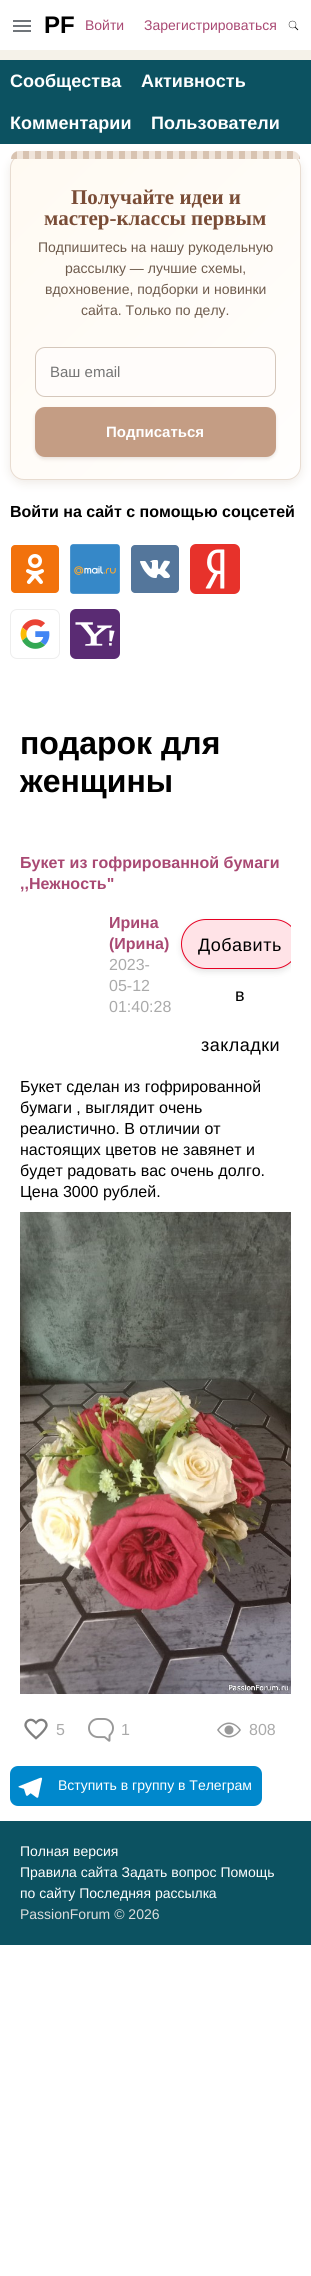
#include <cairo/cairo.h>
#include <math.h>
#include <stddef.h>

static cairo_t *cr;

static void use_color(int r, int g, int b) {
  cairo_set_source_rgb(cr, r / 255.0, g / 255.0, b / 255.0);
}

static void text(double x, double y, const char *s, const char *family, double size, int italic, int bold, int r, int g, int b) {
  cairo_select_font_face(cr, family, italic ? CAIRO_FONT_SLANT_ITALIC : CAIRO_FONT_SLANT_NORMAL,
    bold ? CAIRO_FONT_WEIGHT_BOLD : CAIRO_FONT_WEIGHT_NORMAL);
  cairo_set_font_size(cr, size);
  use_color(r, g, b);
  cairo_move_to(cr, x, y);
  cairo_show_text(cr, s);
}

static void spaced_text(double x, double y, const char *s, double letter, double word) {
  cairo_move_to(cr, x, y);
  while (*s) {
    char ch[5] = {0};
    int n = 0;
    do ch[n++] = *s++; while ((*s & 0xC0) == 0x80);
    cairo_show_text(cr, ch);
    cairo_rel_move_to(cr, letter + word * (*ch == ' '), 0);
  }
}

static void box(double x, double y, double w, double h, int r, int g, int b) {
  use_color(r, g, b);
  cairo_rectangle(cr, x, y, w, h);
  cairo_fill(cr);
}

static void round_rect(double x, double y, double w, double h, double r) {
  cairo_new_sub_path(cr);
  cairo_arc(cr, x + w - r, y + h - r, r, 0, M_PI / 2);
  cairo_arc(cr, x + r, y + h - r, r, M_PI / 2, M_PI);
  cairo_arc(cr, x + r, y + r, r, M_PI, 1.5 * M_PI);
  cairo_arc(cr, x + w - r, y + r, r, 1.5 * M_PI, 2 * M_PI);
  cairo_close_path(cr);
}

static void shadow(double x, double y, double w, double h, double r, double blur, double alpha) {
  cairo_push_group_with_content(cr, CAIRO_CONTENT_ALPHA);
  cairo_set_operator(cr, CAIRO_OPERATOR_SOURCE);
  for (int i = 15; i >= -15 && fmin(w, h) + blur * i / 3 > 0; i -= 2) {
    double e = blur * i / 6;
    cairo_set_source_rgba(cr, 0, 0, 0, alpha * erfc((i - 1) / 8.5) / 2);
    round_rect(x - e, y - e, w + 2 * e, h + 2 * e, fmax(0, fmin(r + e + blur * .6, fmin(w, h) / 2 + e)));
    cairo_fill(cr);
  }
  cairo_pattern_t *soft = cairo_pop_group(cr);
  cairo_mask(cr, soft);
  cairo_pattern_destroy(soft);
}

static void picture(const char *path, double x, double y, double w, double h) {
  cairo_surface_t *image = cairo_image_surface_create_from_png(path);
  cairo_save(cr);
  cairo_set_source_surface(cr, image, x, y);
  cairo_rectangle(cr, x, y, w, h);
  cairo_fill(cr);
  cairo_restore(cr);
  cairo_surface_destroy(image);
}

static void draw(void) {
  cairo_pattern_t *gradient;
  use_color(255, 255, 255);
  cairo_paint(cr);
  box(0, 50, 311, 10, 245, 242, 233);
  picture("img_01.png", 13, 20, 18, 12);
  cairo_arc(cr, 292.5, 24.5, 3.5, 0, 2 * M_PI);
  use_color(0, 0, 0);
  cairo_set_line_width(cr, 0.4);
  cairo_stroke(cr);
  cairo_new_path(cr);
  cairo_move_to(cr, 295, 27);
  cairo_line_to(cr, 298, 30);
  cairo_set_line_width(cr, 0.9);
  cairo_stroke(cr);
  box(0, 60, 311, 84, 12, 82, 97);
  use_color(145, 116, 88);
  shadow(10, 157, 291, 326, 14, 5, 0.15);
  cairo_save(cr);
  round_rect(10, 154, 291, 326, 14);
  cairo_clip(cr);
  gradient = cairo_pattern_create_linear(2.2, 164, 309, 470);
  cairo_pattern_add_color_stop_rgba(gradient, 0, 1, 0.98, 0.949, 1);
  cairo_pattern_add_color_stop_rgba(gradient, 1, 1, 0.996, 0.992, 1);
  cairo_set_source(cr, gradient);
  cairo_pattern_destroy(gradient);
  cairo_rectangle(cr, 11, 159, 289, 320);
  cairo_fill(cr);
  cairo_restore(cr);
  round_rect(10.5, 154.5, 290, 325, 13.5);
  use_color(232, 220, 209);
  cairo_set_line_width(cr, 1);
  cairo_stroke(cr);
  picture("img_02.png", 11, 151, 289, 8);
  use_color(255, 252, 250);
  round_rect(35.5, 347.5, 240, 49, 9.5);
  cairo_fill_preserve(cr);
  use_color(213, 199, 187);
  cairo_stroke(cr);
  use_color(100, 70, 50);
  shadow(35, 409, 241, 50, 10, 2, 0.15);
  use_color(196, 157, 132);
  round_rect(35, 407, 241, 50, 10);
  cairo_fill(cr);
  picture("img_03.png", 11, 545, 48, 48);
  picture("img_04.png", 70, 544, 50, 50);
  picture("img_05.png", 131, 545, 48, 48);
  picture("img_06.png", 190, 544, 50, 50);
  picture("img_07.png", 20, 619, 30, 30);
  round_rect(10.5, 609.5, 49, 49, 6.5);
  use_color(238, 238, 238);
  cairo_stroke(cr);
  picture("img_08.png", 70, 609, 50, 50);
  cairo_save(cr);
  cairo_rectangle(cr, 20, 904, 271, 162);
  cairo_clip(cr);
  use_color(0, 0, 0);
  shadow(181, 922, 118, 50, 25, 3, 0.1);
  cairo_restore(cr);
  cairo_save(cr);
  cairo_rectangle(cr, 20, 904, 271, 162);
  cairo_clip(cr);
  use_color(255, 227, 231);
  round_rect(181.5, 919.5, 117, 49, 24.5);
  cairo_fill_preserve(cr);
  use_color(230, 0, 35);
  cairo_stroke(cr);
  cairo_restore(cr);
  picture("img_09.png", 20, 1212, 271, 482);
  picture("img_10.png", 24, 1718, 24, 22);
  picture("img_11.png", 88, 1718, 26, 24);
  picture("img_12.png", 217, 1722, 24, 16);
  use_color(0, 136, 204);
  round_rect(10, 1766, 252, 40, 8);
  cairo_fill(cr);
  picture("img_13.png", 18, 1777, 25, 21);
  box(0, 1821, 311, 124, 12, 82, 97);
  text(44, 33, "PF", "Liberation Sans", 24, 0, 1, 0, 0, 0);
  text(85, 30, "Войти", "Liberation Sans", 14, 0, 0, 169, 73, 115);
  text(144, 30, "Зарегистрироваться", "Liberation Sans", 14, 0, 0, 169, 73, 115);
  text(10, 87, "Сообщества", "Liberation Sans", 18, 0, 1, 255, 255, 255);
  text(141, 87, "Активность", "Liberation Sans", 18, 0, 1, 255, 255, 255);
  text(10, 129, "Комментарии", "Liberation Sans", 18, 0, 1, 255, 255, 255);
  text(151, 129, "Пользователи", "Liberation Sans", 18, 0, 1, 255, 255, 255);
  text(71, 204, "Получайте идеи и", "Liberation Serif", 21, 0, 1, 122, 77, 55);
  text(44, 225, "мастер-классы первым", "Liberation Serif", 21, 0, 1, 122, 77, 55);
  text(38, 252, "Подпишитесь на нашу рукодельную", "Liberation Sans", 14, 0, 0, 110, 91, 77);
  text(65, 273, "рассылку — лучшие схемы,", "Liberation Sans", 14, 0, 0, 110, 91, 77);
  text(45, 294, "вдохновение, подборки и новинки", "Liberation Sans", 14, 0, 0, 110, 91, 77);
  text(81, 315, "сайта. Только по делу.", "Liberation Sans", 14, 0, 0, 110, 91, 77);
  text(50, 377, "Ваш email", "Liberation Sans", 15, 0, 0, 117, 117, 117);
  text(106, 437, "Подписаться", "Liberation Sans", 15, 0, 1, 255, 255, 255);
  text(10, 517, "Войти на сайт с помощью соцсетей", "Liberation Sans", 16, 0, 1, 0, 0, 0);
  text(20, 754, "подарок для", "Liberation Sans", 32, 0, 1, 0, 0, 0);
  text(20, 792, "женщины", "Liberation Sans", 32, 0, 1, 0, 0, 0);
  text(20, 868, "Букет из гофрированной бумаги", "Liberation Sans", 16, 0, 1, 169, 73, 115);
  text(20, 889, ",,Нежность\"", "Liberation Sans", 16, 0, 1, 169, 73, 115);
  text(109, 928, "Ирина", "Liberation Sans", 16, 0, 1, 169, 73, 115);
  text(109, 949, "(Ирина)", "Liberation Sans", 16, 0, 1, 169, 73, 115);
  text(109, 970, "2023-", "Liberation Sans", 16, 0, 0, 170, 170, 170);
  text(109, 991, "05-12", "Liberation Sans", 16, 0, 0, 170, 170, 170);
  text(109, 1012, "01:40:28", "Liberation Sans", 16, 0, 0, 170, 170, 170);
  cairo_set_font_size(cr, 18);
  use_color(0, 0, 0);
  spaced_text(198, 951, "Добавить", 0.5, 0);
  spaced_text(235, 1001, "в", 0.5, 0);
  spaced_text(201, 1051, "закладки", 0.5, 0);
  text(20, 1092, "Букет сделан из гофрированной", "Liberation Sans", 16, 0, 0, 0, 0, 0);
  text(20, 1113, "бумаги , выглядит очень", "Liberation Sans", 16, 0, 0, 0, 0, 0);
  text(20, 1134, "реалистично. В отличии от", "Liberation Sans", 16, 0, 0, 0, 0, 0);
  text(20, 1155, "настоящих цветов не завянет и", "Liberation Sans", 16, 0, 0, 0, 0, 0);
  text(20, 1176, "будет радовать вас очень долго.", "Liberation Sans", 16, 0, 0, 0, 0, 0);
  text(20, 1197, "Цена 3000 рублей.", "Liberation Sans", 16, 0, 0, 0, 0, 0);
  text(56, 1735, "5", "Liberation Sans", 16, 0, 0, 170, 170, 170);
  text(121, 1735, "1", "Liberation Sans", 16, 0, 0, 170, 170, 170);
  text(249, 1735, "808", "Liberation Sans", 16, 0, 0, 170, 170, 170);
  text(58, 1790, "Вступить в группу в Телеграм", "Liberation Sans", 14, 0, 0, 255, 255, 255);
  text(20, 1856, "Полная версия", "Liberation Sans", 14, 0, 0, 255, 255, 255);
  text(20, 1877, "Правила сайта Задать вопрос Помощь", "Liberation Sans", 14, 0, 0, 255, 255, 255);
  text(20, 1898, "по сайту Последняя рассылка", "Liberation Sans", 14, 0, 0, 255, 255, 255);
  text(20, 1919, "PassionForum © 2026", "Liberation Sans", 14, 0, 0, 221, 221, 221);
}

int main(void) {
  cairo_surface_t *surface = cairo_image_surface_create(CAIRO_FORMAT_RGB24, 311, 2276);
  cr = cairo_create(surface);
  cairo_font_options_t *options = cairo_font_options_create();
  cairo_font_options_set_hint_metrics(options, CAIRO_HINT_METRICS_OFF);
  cairo_font_options_set_hint_style(options, CAIRO_HINT_STYLE_NONE);
  cairo_set_font_options(cr, options);
  cairo_set_miter_limit(cr, 4);
  draw();
  cairo_surface_write_to_png(surface, "out.png");
  cairo_font_options_destroy(options);
  cairo_destroy(cr);
  cairo_surface_destroy(surface);
  return 0;
}
